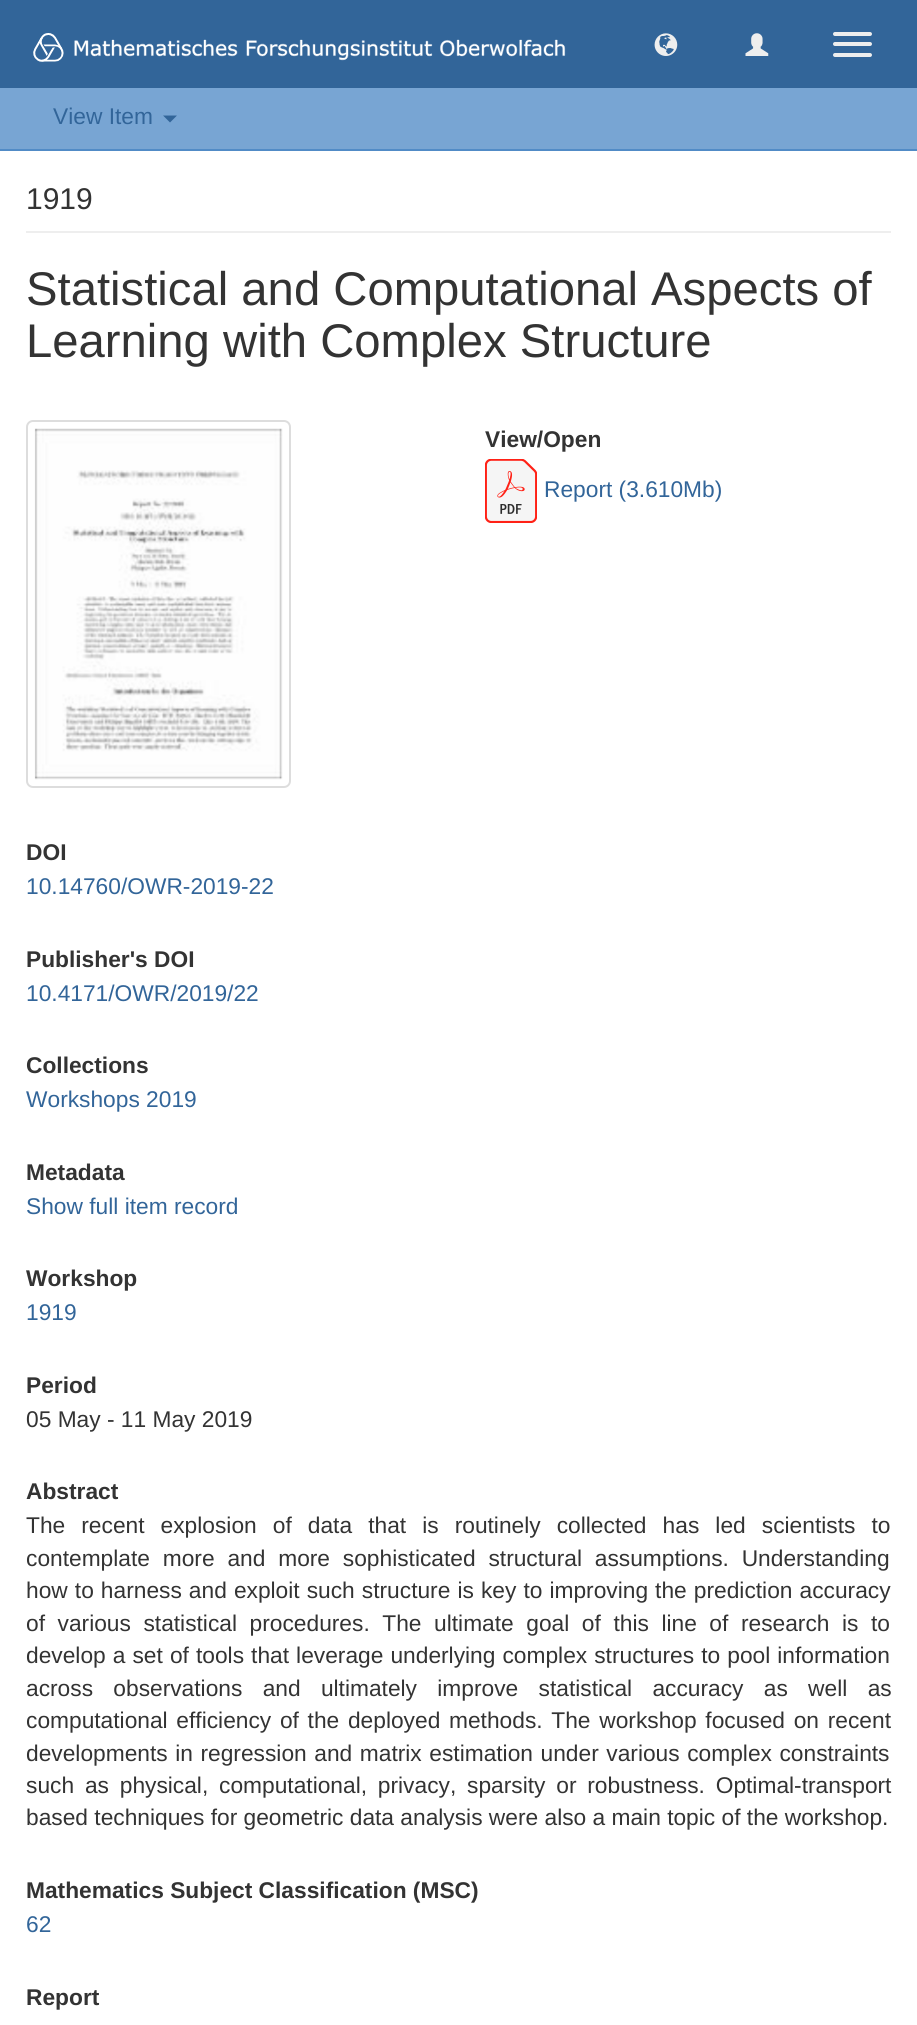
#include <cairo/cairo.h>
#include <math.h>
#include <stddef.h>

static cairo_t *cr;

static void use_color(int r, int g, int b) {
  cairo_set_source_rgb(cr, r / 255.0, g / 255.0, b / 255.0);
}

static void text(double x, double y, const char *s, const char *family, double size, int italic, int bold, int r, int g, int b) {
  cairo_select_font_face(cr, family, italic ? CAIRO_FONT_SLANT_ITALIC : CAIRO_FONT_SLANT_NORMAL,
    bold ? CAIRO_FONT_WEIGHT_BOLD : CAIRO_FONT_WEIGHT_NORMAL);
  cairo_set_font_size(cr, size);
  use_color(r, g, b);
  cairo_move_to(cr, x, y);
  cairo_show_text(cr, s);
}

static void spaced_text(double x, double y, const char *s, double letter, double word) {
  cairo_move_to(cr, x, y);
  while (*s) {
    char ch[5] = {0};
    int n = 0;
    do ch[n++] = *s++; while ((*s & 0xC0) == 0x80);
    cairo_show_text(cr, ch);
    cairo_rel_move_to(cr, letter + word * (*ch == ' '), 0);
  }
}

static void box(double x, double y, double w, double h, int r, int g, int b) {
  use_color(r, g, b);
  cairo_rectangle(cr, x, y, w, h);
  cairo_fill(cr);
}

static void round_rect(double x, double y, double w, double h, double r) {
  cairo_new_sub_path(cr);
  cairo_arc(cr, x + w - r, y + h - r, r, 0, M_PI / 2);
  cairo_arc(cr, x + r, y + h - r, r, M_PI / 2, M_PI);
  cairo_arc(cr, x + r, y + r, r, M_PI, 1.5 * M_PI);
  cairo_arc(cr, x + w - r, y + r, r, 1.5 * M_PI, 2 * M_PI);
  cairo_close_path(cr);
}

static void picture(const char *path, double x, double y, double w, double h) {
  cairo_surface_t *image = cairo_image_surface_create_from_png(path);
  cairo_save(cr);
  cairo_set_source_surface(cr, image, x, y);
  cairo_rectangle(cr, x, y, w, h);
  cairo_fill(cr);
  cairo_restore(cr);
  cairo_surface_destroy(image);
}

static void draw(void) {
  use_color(120, 165, 211);
  cairo_paint(cr);
  box(0, 0, 917, 88, 50, 101, 153);
  picture("img_01.png", 33, 33, 533, 29);
  picture("img_02.png", 654, 33, 24, 23);
  picture("img_03.png", 745, 33, 24, 23);
  use_color(238, 238, 238);
  round_rect(833, 32, 39, 4, 2);
  cairo_fill(cr);
  round_rect(833, 42, 39, 4, 2);
  cairo_fill(cr);
  round_rect(833, 53, 39, 4, 2);
  cairo_fill(cr);
  box(0, 149, 917, 2, 81, 139, 198);
  use_color(50, 101, 153);
  cairo_new_path(cr);
  cairo_move_to(cr, 163, 115.5);
  cairo_line_to(cr, 177, 115.5);
  cairo_line_to(cr, 170, 122.5);
  cairo_close_path(cr);
  cairo_fill(cr);
  box(0, 151, 917, 1874, 255, 255, 255);
  box(26, 231, 865, 2, 238, 238, 238);
  round_rect(27, 421, 263, 366, 6);
  use_color(221, 221, 221);
  cairo_stroke(cr);
  picture("img_04.png", 34, 428, 249, 352);
  picture("img_05.png", 485, 459, 52, 64);
  text(53, 124, "View Item", "Liberation Sans", 22.75, 0, 0, 50, 101, 153);
  text(26, 209, "1919", "Liberation Sans", 30, 0, 0, 51, 51, 51);
  text(26, 305, "Statistical and Computational Aspects of", "Liberation Sans", 47.25, 0, 0, 51, 51, 51);
  text(26, 357, "Learning with Complex Structure", "Liberation Sans", 47.25, 0, 0, 51, 51, 51);
  text(485, 447, "View/Open", "Liberation Sans", 22.75, 0, 1, 51, 51, 51);
  text(544, 497, "Report (3.610Mb)", "Liberation Sans", 22.75, 0, 0, 50, 101, 153);
  text(26, 860, "DOI", "Liberation Sans", 22.75, 0, 1, 51, 51, 51);
  text(26, 894, "10.14760/OWR-2019-22", "Liberation Sans", 22.75, 0, 0, 50, 101, 153);
  text(26, 967, "Publisher's DOI", "Liberation Sans", 22.75, 0, 1, 51, 51, 51);
  text(26, 1001, "10.4171/OWR/2019/22", "Liberation Sans", 22.75, 0, 0, 50, 101, 153);
  text(26, 1073, "Collections", "Liberation Sans", 22.75, 0, 1, 51, 51, 51);
  text(26, 1107, "Workshops 2019", "Liberation Sans", 22.75, 0, 0, 50, 101, 153);
  text(26, 1180, "Metadata", "Liberation Sans", 22.75, 0, 1, 51, 51, 51);
  text(26, 1214, "Show full item record", "Liberation Sans", 22.75, 0, 0, 50, 101, 153);
  text(26, 1286, "Workshop", "Liberation Sans", 22.75, 0, 1, 51, 51, 51);
  text(26, 1320, "1919", "Liberation Sans", 22.75, 0, 0, 50, 101, 153);
  text(26, 1393, "Period", "Liberation Sans", 22.75, 0, 1, 51, 51, 51);
  text(26, 1427, "05 May - 11 May 2019", "Liberation Sans", 22.75, 0, 0, 51, 51, 51);
  text(26, 1499, "Abstract", "Liberation Sans", 22.75, 0, 1, 51, 51, 51);
  cairo_select_font_face(cr, "Liberation Sans", CAIRO_FONT_SLANT_NORMAL, CAIRO_FONT_WEIGHT_NORMAL);
  spaced_text(26, 1533, "The recent explosion of data that is routinely collected has led scientists to", 0, 9.75);
  spaced_text(26, 1566, "contemplate more and more sophisticated structural assumptions. Understanding", 0, 6.5);
  spaced_text(26, 1598, "how to harness and exploit such structure is key to improving the prediction accuracy", 0, 0.75);
  spaced_text(26, 1631, "of various statistical procedures. The ultimate goal of this line of research is to", 0, 6.25);
  spaced_text(26, 1663, "develop a set of tools that leverage underlying complex structures to pool information", 0, 0.75);
  spaced_text(26, 1696, "across observations and ultimately improve statistical accuracy as well as", 0, 14);
  spaced_text(26, 1728, "computational efficiency of the deployed methods. The workshop focused on recent", 0, 2.4);
  spaced_text(26, 1761, "developments in regression and matrix estimation under various complex constraints", 0, 1.25);
  spaced_text(26, 1793, "such as physical, computational, privacy, sparsity or robustness. Optimal-transport", 0, 4.5);
  text(26, 1825, "based techniques for geometric data analysis were also a main topic of the workshop.", "Liberation Sans", 22.75, 0, 0, 51, 51, 51);
  text(26, 1898, "Mathematics Subject Classification (MSC)", "Liberation Sans", 22.75, 0, 1, 51, 51, 51);
  text(26, 1932, "62", "Liberation Sans", 22.75, 0, 0, 50, 101, 153);
  text(26, 2005, "Report", "Liberation Sans", 22.75, 0, 1, 51, 51, 51);
}

int main(void) {
  cairo_surface_t *surface = cairo_image_surface_create(CAIRO_FORMAT_RGB24, 917, 2025);
  cr = cairo_create(surface);
  cairo_font_options_t *options = cairo_font_options_create();
  cairo_font_options_set_hint_metrics(options, CAIRO_HINT_METRICS_OFF);
  cairo_font_options_set_hint_style(options, CAIRO_HINT_STYLE_NONE);
  cairo_set_font_options(cr, options);
  cairo_set_miter_limit(cr, 4);
  draw();
  cairo_surface_write_to_png(surface, "out.png");
  cairo_font_options_destroy(options);
  cairo_destroy(cr);
  cairo_surface_destroy(surface);
  return 0;
}
